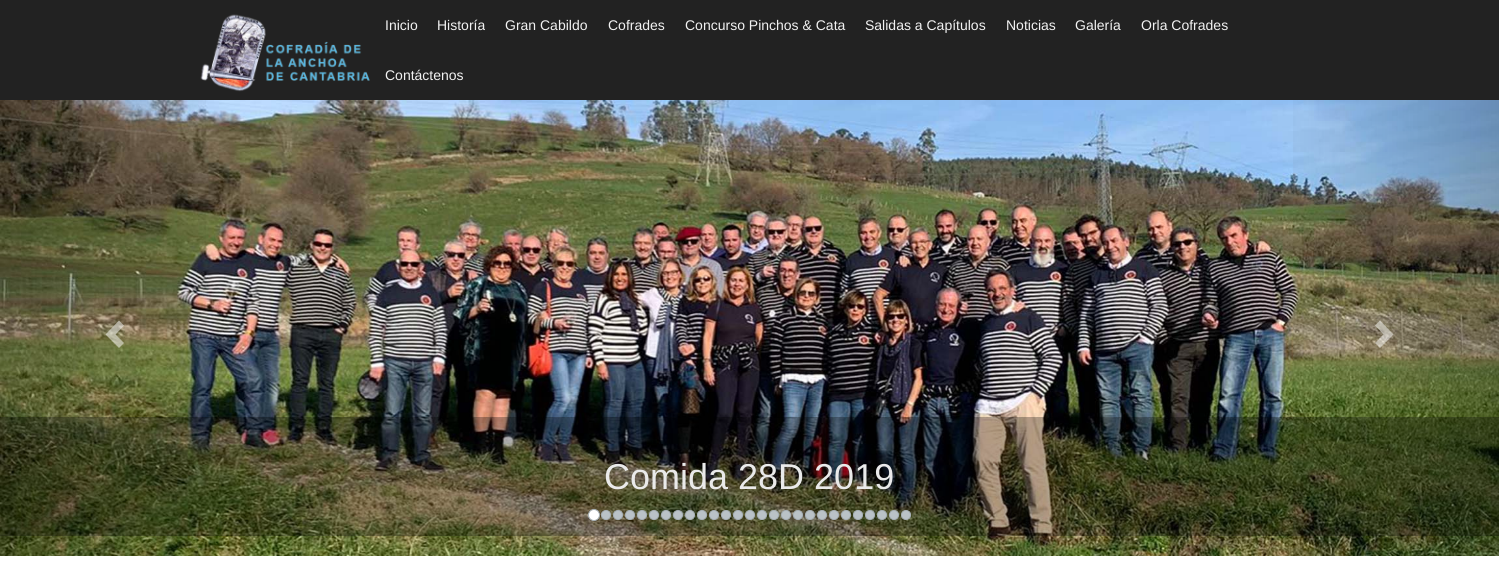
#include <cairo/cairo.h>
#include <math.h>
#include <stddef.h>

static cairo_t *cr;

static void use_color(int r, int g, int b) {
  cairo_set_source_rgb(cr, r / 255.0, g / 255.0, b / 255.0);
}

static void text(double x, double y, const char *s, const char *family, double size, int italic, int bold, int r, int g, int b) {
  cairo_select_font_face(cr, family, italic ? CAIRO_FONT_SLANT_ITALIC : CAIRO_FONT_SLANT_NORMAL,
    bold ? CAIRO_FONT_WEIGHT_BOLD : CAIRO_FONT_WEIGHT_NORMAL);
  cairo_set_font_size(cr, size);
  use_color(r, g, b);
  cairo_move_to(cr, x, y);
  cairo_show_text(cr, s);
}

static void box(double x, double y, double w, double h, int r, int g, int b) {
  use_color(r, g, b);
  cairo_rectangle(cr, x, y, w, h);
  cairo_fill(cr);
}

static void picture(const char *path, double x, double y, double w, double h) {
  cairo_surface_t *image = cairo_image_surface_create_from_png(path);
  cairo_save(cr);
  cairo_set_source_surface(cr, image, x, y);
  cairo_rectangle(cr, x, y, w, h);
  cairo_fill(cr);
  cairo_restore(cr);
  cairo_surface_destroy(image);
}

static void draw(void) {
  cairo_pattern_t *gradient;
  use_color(255, 255, 255);
  cairo_paint(cr);
  box(0, 0, 1499, 100, 34, 34, 34);
  picture("img_01.png", 200, 14, 170, 78);
  picture("img_02.png", 0, 100, 1499, 456);
  cairo_set_source_rgba(cr, 0, 0, 0, 0.3);
  cairo_rectangle(cr, 0, 417, 1499, 119);
  cairo_fill(cr);
  gradient = cairo_pattern_create_linear(0, 328, 225, 328);
  cairo_pattern_add_color_stop_rgba(gradient, 0, 0, 0, 0, 0.25);
  cairo_pattern_add_color_stop_rgba(gradient, 1, 0, 0, 0, 0);
  cairo_set_source(cr, gradient);
  cairo_pattern_destroy(gradient);
  cairo_rectangle(cr, 0, 100, 206, 456);
  cairo_fill(cr);
  cairo_set_source_rgba(cr, 1, 1, 1, 0.5);
  cairo_new_path(cr);
  cairo_move_to(cr, 124, 325.5);
  cairo_line_to(cr, 115.5, 334.5);
  cairo_line_to(cr, 124, 343);
  cairo_line_to(cr, 119, 348);
  cairo_line_to(cr, 105.5, 334.5);
  cairo_line_to(cr, 119, 320.5);
  cairo_close_path(cr);
  cairo_fill(cr);
  gradient = cairo_pattern_create_linear(1274, 328, 1499, 328);
  cairo_pattern_add_color_stop_rgba(gradient, 0, 0, 0, 0, 0);
  cairo_pattern_add_color_stop_rgba(gradient, 1, 0, 0, 0, 0.25);
  cairo_set_source(cr, gradient);
  cairo_pattern_destroy(gradient);
  cairo_rectangle(cr, 1293, 100, 206, 456);
  cairo_fill(cr);
  cairo_set_source_rgba(cr, 1, 1, 1, 0.5);
  cairo_new_path(cr);
  cairo_move_to(cr, 1393.5, 334.5);
  cairo_line_to(cr, 1380, 348);
  cairo_line_to(cr, 1375, 343);
  cairo_line_to(cr, 1383.5, 334.5);
  cairo_line_to(cr, 1375, 325.5);
  cairo_line_to(cr, 1380, 320.5);
  cairo_close_path(cr);
  cairo_fill(cr);
  use_color(255, 255, 255);
  cairo_arc(cr, 594, 515, 5.5, 0, 2 * M_PI);
  cairo_fill_preserve(cr);
  use_color(168, 177, 183);
  cairo_set_line_width(cr, 1);
  cairo_stroke(cr);
  use_color(186, 194, 199);
  cairo_arc(cr, 606, 515, 4.5, 0, 2 * M_PI);
  cairo_fill_preserve(cr);
  use_color(168, 177, 183);
  cairo_stroke(cr);
  use_color(186, 194, 199);
  cairo_arc(cr, 618, 515, 4.5, 0, 2 * M_PI);
  cairo_fill_preserve(cr);
  use_color(168, 177, 183);
  cairo_stroke(cr);
  use_color(186, 194, 199);
  cairo_arc(cr, 630, 515, 4.5, 0, 2 * M_PI);
  cairo_fill_preserve(cr);
  use_color(168, 177, 183);
  cairo_stroke(cr);
  use_color(186, 194, 199);
  cairo_arc(cr, 642, 515, 4.5, 0, 2 * M_PI);
  cairo_fill_preserve(cr);
  use_color(168, 177, 183);
  cairo_stroke(cr);
  use_color(186, 194, 199);
  cairo_arc(cr, 654, 515, 4.5, 0, 2 * M_PI);
  cairo_fill_preserve(cr);
  use_color(168, 177, 183);
  cairo_stroke(cr);
  use_color(186, 194, 199);
  cairo_arc(cr, 666, 515, 4.5, 0, 2 * M_PI);
  cairo_fill_preserve(cr);
  use_color(168, 177, 183);
  cairo_stroke(cr);
  use_color(186, 194, 199);
  cairo_arc(cr, 678, 515, 4.5, 0, 2 * M_PI);
  cairo_fill_preserve(cr);
  use_color(168, 177, 183);
  cairo_stroke(cr);
  use_color(186, 194, 199);
  cairo_arc(cr, 690, 515, 4.5, 0, 2 * M_PI);
  cairo_fill_preserve(cr);
  use_color(168, 177, 183);
  cairo_stroke(cr);
  use_color(186, 194, 199);
  cairo_arc(cr, 702, 515, 4.5, 0, 2 * M_PI);
  cairo_fill_preserve(cr);
  use_color(168, 177, 183);
  cairo_stroke(cr);
  use_color(186, 194, 199);
  cairo_arc(cr, 714, 515, 4.5, 0, 2 * M_PI);
  cairo_fill_preserve(cr);
  use_color(168, 177, 183);
  cairo_stroke(cr);
  use_color(186, 194, 199);
  cairo_arc(cr, 726, 515, 4.5, 0, 2 * M_PI);
  cairo_fill_preserve(cr);
  use_color(168, 177, 183);
  cairo_stroke(cr);
  use_color(186, 194, 199);
  cairo_arc(cr, 738, 515, 4.5, 0, 2 * M_PI);
  cairo_fill_preserve(cr);
  use_color(168, 177, 183);
  cairo_stroke(cr);
  use_color(186, 194, 199);
  cairo_arc(cr, 750, 515, 4.5, 0, 2 * M_PI);
  cairo_fill_preserve(cr);
  use_color(168, 177, 183);
  cairo_stroke(cr);
  use_color(186, 194, 199);
  cairo_arc(cr, 762, 515, 4.5, 0, 2 * M_PI);
  cairo_fill_preserve(cr);
  use_color(168, 177, 183);
  cairo_stroke(cr);
  use_color(186, 194, 199);
  cairo_arc(cr, 774, 515, 4.5, 0, 2 * M_PI);
  cairo_fill_preserve(cr);
  use_color(168, 177, 183);
  cairo_stroke(cr);
  use_color(186, 194, 199);
  cairo_arc(cr, 786, 515, 4.5, 0, 2 * M_PI);
  cairo_fill_preserve(cr);
  use_color(168, 177, 183);
  cairo_stroke(cr);
  use_color(186, 194, 199);
  cairo_arc(cr, 798, 515, 4.5, 0, 2 * M_PI);
  cairo_fill_preserve(cr);
  use_color(168, 177, 183);
  cairo_stroke(cr);
  use_color(186, 194, 199);
  cairo_arc(cr, 810, 515, 4.5, 0, 2 * M_PI);
  cairo_fill_preserve(cr);
  use_color(168, 177, 183);
  cairo_stroke(cr);
  use_color(186, 194, 199);
  cairo_arc(cr, 822, 515, 4.5, 0, 2 * M_PI);
  cairo_fill_preserve(cr);
  use_color(168, 177, 183);
  cairo_stroke(cr);
  use_color(186, 194, 199);
  cairo_arc(cr, 834, 515, 4.5, 0, 2 * M_PI);
  cairo_fill_preserve(cr);
  use_color(168, 177, 183);
  cairo_stroke(cr);
  use_color(186, 194, 199);
  cairo_arc(cr, 846, 515, 4.5, 0, 2 * M_PI);
  cairo_fill_preserve(cr);
  use_color(168, 177, 183);
  cairo_stroke(cr);
  use_color(186, 194, 199);
  cairo_arc(cr, 858, 515, 4.5, 0, 2 * M_PI);
  cairo_fill_preserve(cr);
  use_color(168, 177, 183);
  cairo_stroke(cr);
  use_color(186, 194, 199);
  cairo_arc(cr, 870, 515, 4.5, 0, 2 * M_PI);
  cairo_fill_preserve(cr);
  use_color(168, 177, 183);
  cairo_stroke(cr);
  use_color(186, 194, 199);
  cairo_arc(cr, 882, 515, 4.5, 0, 2 * M_PI);
  cairo_fill_preserve(cr);
  use_color(168, 177, 183);
  cairo_stroke(cr);
  use_color(186, 194, 199);
  cairo_arc(cr, 894, 515, 4.5, 0, 2 * M_PI);
  cairo_fill_preserve(cr);
  use_color(168, 177, 183);
  cairo_stroke(cr);
  use_color(186, 194, 199);
  cairo_arc(cr, 906, 515, 4.5, 0, 2 * M_PI);
  cairo_fill_preserve(cr);
  use_color(168, 177, 183);
  cairo_stroke(cr);
  text(385, 30, "Inicio", "Liberation Sans", 14, 0, 0, 242, 242, 242);
  text(437, 30, "Historía", "Liberation Sans", 14, 0, 0, 242, 242, 242);
  text(505, 30, "Gran Cabildo", "Liberation Sans", 14, 0, 0, 242, 242, 242);
  text(608, 30, "Cofrades", "Liberation Sans", 14, 0, 0, 242, 242, 242);
  text(685, 30, "Concurso Pinchos & Cata", "Liberation Sans", 14, 0, 0, 242, 242, 242);
  text(865, 30, "Salidas a Capítulos", "Liberation Sans", 14, 0, 0, 242, 242, 242);
  text(1006, 30, "Noticias", "Liberation Sans", 14, 0, 0, 242, 242, 242);
  text(1075, 30, "Galería", "Liberation Sans", 14, 0, 0, 242, 242, 242);
  text(1141, 30, "Orla Cofrades", "Liberation Sans", 14, 0, 0, 242, 242, 242);
  text(385, 80, "Contáctenos", "Liberation Sans", 14, 0, 0, 242, 242, 242);
  text(604, 489, "Comida 28D 2019", "Liberation Sans", 36, 0, 0, 234, 234, 234);
}

int main(void) {
  cairo_surface_t *surface = cairo_image_surface_create(CAIRO_FORMAT_RGB24, 1499, 587);
  cr = cairo_create(surface);
  cairo_font_options_t *options = cairo_font_options_create();
  cairo_font_options_set_hint_metrics(options, CAIRO_HINT_METRICS_OFF);
  cairo_font_options_set_hint_style(options, CAIRO_HINT_STYLE_NONE);
  cairo_set_font_options(cr, options);
  cairo_set_miter_limit(cr, 4);
  draw();
  cairo_surface_write_to_png(surface, "out.png");
  cairo_font_options_destroy(options);
  cairo_destroy(cr);
  cairo_surface_destroy(surface);
  return 0;
}
